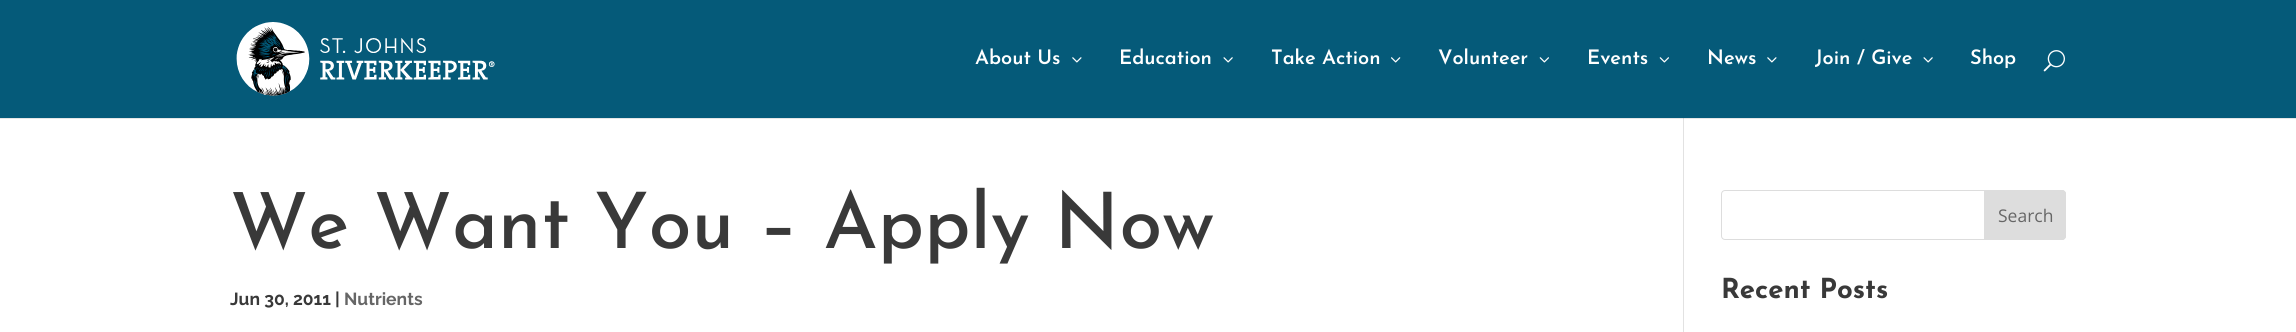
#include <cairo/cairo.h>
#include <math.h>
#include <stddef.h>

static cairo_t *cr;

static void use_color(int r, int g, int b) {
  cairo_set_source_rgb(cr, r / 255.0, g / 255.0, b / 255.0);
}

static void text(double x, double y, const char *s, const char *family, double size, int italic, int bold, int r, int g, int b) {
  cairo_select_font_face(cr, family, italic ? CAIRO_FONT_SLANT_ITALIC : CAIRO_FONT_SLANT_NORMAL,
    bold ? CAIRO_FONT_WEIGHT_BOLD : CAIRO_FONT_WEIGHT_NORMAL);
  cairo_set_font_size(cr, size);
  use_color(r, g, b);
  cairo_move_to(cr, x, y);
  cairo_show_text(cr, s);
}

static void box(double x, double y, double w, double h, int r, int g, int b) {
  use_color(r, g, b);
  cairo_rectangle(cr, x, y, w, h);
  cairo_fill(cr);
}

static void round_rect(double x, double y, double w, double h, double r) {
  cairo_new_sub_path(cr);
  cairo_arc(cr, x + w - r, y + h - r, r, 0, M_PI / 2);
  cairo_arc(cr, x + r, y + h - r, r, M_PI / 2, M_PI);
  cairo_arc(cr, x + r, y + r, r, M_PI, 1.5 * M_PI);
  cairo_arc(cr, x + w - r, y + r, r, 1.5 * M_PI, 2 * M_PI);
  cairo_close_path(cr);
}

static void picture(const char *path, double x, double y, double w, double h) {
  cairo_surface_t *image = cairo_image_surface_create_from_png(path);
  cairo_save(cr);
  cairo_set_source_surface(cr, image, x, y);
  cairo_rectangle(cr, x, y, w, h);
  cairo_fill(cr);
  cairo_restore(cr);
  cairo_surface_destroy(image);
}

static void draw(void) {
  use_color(255, 255, 255);
  cairo_paint(cr);
  box(0, 118, 2296, 1, 230, 230, 230);
  box(0, 0, 2296, 118, 5, 90, 121);
  picture("img_01.png", 236, 22, 259, 74);
  picture("img_02.png", 1072, 57, 10, 6);
  picture("img_03.png", 1223, 57, 10, 6);
  picture("img_04.png", 1391, 57, 10, 6);
  picture("img_05.png", 1539, 57, 10, 6);
  picture("img_05.png", 1659, 57, 10, 6);
  picture("img_02.png", 1767, 57, 10, 6);
  picture("img_03.png", 1923, 57, 10, 6);
  picture("img_06.png", 2043, 50, 22, 22);
  box(1683, 118, 1, 214, 226, 226, 226);
  box(1683, 118, 1, 1, 203, 203, 203);
  round_rect(1721.5, 190.5, 344, 49, 3.5);
  use_color(221, 221, 221);
  cairo_set_line_width(cr, 1);
  cairo_stroke(cr);
  cairo_new_path(cr);
  cairo_move_to(cr, 1984.5, 190.5);
  cairo_line_to(cr, 2062, 190.5);
  cairo_curve_to(cr, 2064, 190.5, 2065.5, 192, 2065.5, 194);
  cairo_line_to(cr, 2065.5, 236);
  cairo_curve_to(cr, 2065.5, 238, 2064, 239.5, 2062, 239.5);
  cairo_line_to(cr, 1984.5, 239.5);
  cairo_close_path(cr);
  cairo_fill_preserve(cr);
  cairo_stroke(cr);
  text(975, 64, "About Us", "Josefin Sans SemiBold", 20, 0, 0, 255, 255, 255);
  text(1119, 64, "Education", "Josefin Sans SemiBold", 20, 0, 0, 255, 255, 255);
  text(1271, 64, "Take Action", "Josefin Sans SemiBold", 20, 0, 0, 255, 255, 255);
  text(1438, 64, "Volunteer", "Josefin Sans SemiBold", 20, 0, 0, 255, 255, 255);
  text(1587, 64, "Events", "Josefin Sans SemiBold", 20, 0, 0, 255, 255, 255);
  text(1707, 64, "News", "Josefin Sans SemiBold", 20, 0, 0, 255, 255, 255);
  text(1815, 64, "Join / Give", "Josefin Sans SemiBold", 20, 0, 0, 255, 255, 255);
  text(1970, 64, "Shop", "Josefin Sans SemiBold", 20, 0, 0, 255, 255, 255);
  text(230, 248, "We Want You – Apply Now", "Josefin Sans Medium", 77.5, 0, 0, 57, 57, 57);
  text(230, 305, "Jun 30, 2011 |", "Raleway", 17.5, 0, 1, 57, 57, 57);
  text(344, 305, "Nutrients", "Raleway", 17.5, 0, 1, 102, 102, 102);
  text(1998, 222, "Search", "Open Sans", 17.5, 0, 0, 102, 102, 102);
  text(1721, 298, "Recent Posts", "Josefin Sans", 27.5, 0, 1, 57, 57, 57);
}

int main(void) {
  cairo_surface_t *surface = cairo_image_surface_create(CAIRO_FORMAT_RGB24, 2296, 332);
  cr = cairo_create(surface);
  cairo_font_options_t *options = cairo_font_options_create();
  cairo_font_options_set_hint_metrics(options, CAIRO_HINT_METRICS_OFF);
  cairo_font_options_set_hint_style(options, CAIRO_HINT_STYLE_NONE);
  cairo_set_font_options(cr, options);
  cairo_set_miter_limit(cr, 4);
  draw();
  cairo_surface_write_to_png(surface, "out.png");
  cairo_font_options_destroy(options);
  cairo_destroy(cr);
  cairo_surface_destroy(surface);
  return 0;
}
